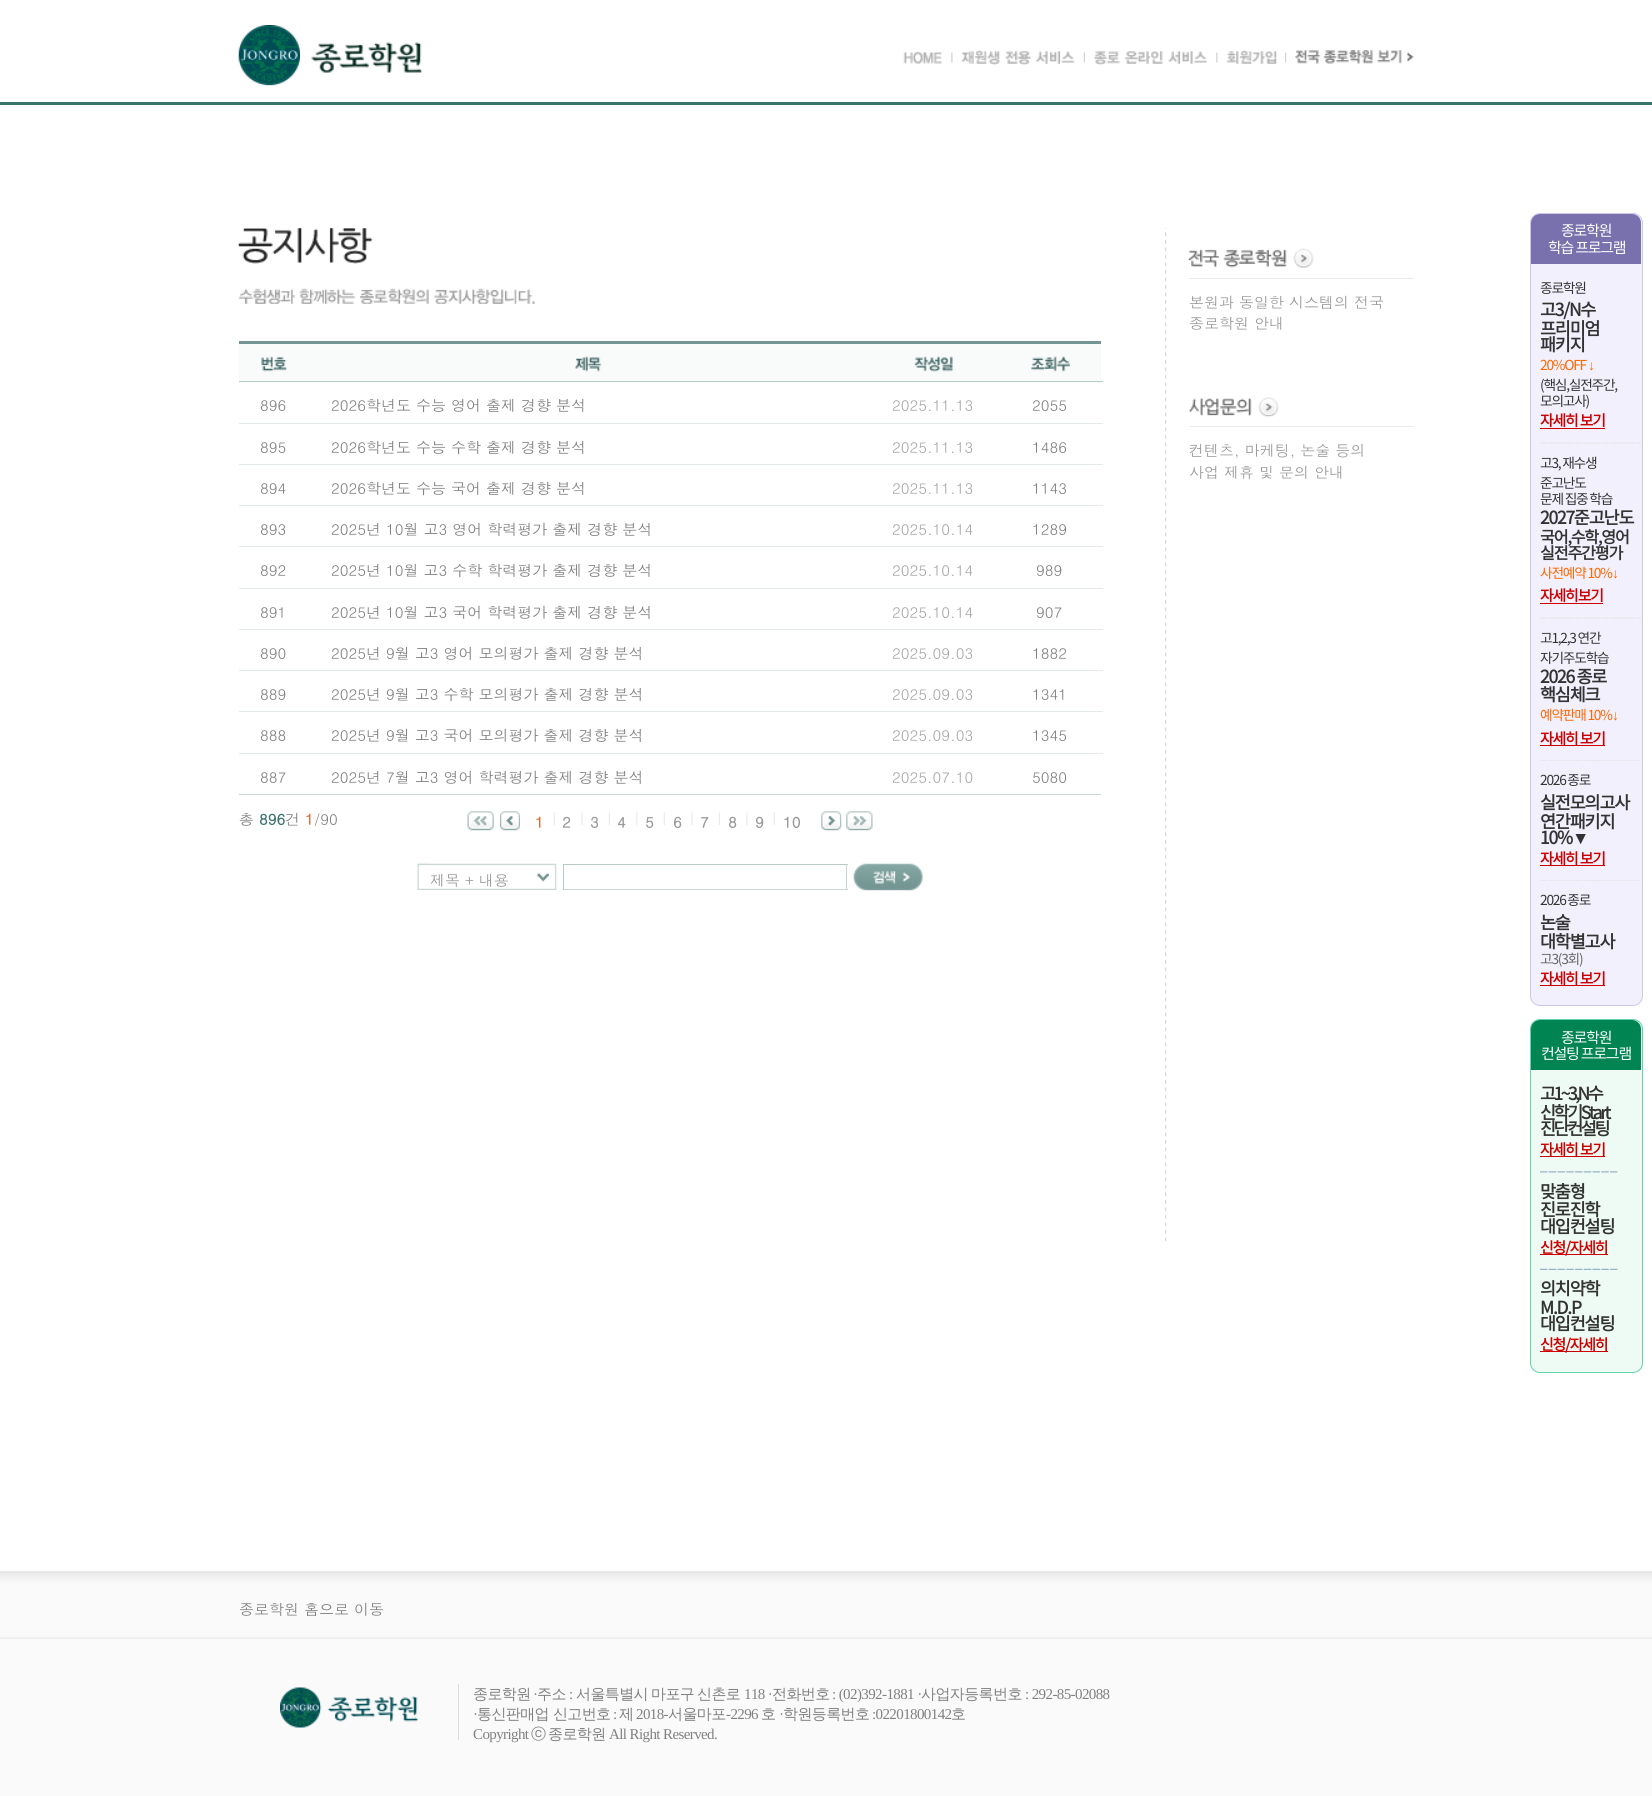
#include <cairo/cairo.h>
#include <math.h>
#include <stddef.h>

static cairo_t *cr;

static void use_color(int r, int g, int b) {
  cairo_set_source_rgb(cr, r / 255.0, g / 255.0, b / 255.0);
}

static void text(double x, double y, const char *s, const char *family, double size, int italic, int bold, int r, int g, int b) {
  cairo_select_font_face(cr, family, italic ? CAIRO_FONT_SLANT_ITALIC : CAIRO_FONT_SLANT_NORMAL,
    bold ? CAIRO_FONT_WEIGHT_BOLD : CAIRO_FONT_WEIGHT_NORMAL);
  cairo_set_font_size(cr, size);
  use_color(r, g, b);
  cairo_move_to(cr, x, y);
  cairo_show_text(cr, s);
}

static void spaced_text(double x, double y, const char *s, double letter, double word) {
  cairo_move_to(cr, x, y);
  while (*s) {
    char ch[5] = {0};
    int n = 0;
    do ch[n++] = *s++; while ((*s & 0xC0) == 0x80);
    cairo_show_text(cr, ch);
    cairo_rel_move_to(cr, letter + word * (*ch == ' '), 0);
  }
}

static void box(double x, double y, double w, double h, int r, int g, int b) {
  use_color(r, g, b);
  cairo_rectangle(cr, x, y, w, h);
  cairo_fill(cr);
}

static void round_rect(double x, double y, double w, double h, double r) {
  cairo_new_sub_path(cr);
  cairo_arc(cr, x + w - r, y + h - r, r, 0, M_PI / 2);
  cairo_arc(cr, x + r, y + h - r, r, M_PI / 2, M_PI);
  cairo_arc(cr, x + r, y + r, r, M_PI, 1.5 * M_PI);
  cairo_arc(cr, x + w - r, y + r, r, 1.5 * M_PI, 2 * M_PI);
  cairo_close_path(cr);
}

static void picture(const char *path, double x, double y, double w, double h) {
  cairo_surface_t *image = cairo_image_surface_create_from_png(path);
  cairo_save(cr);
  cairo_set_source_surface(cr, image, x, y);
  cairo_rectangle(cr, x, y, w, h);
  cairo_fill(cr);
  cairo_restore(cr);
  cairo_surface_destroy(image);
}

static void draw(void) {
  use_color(255, 255, 255);
  cairo_paint(cr);
  box(0, 102, 1652, 3, 60, 114, 109);
  picture("img_01.png", 238, 25, 62, 61);
  picture("img_02.png", 311, 42, 111, 31);
  picture("img_03.png", 903, 51, 40, 13);
  picture("img_04.png", 951, 52, 2, 11);
  picture("img_05.png", 961, 50, 114, 15);
  picture("img_06.png", 1083, 52, 2, 11);
  picture("img_07.png", 1093, 51, 115, 14);
  picture("img_04.png", 1216, 52, 2, 11);
  picture("img_08.png", 1226, 50, 51, 14);
  picture("img_09.png", 1285, 52, 2, 11);
  picture("img_10.png", 1295, 50, 119, 14);
  picture("img_11.png", 1165, 228, 2, 1013);
  picture("img_12.png", 238, 228, 135, 36);
  picture("img_13.png", 238, 288, 297, 16);
  box(239, 794, 862, 1, 203, 215, 213);
  box(239, 341, 862, 3, 115, 148, 144);
  box(239, 344, 862, 39, 249, 250, 250);
  picture("img_14.png", 261, 356, 26, 16);
  box(239, 381, 864, 1, 185, 201, 199);
  picture("img_15.png", 1031, 356, 39, 16);
  picture("img_16.png", 575, 356, 27, 16);
  picture("img_17.png", 914, 356, 39, 16);
  box(239, 423, 864, 1, 228, 235, 233);
  box(239, 464, 864, 1, 228, 235, 233);
  box(239, 505, 864, 1, 228, 235, 233);
  box(239, 546, 864, 1, 228, 235, 233);
  box(239, 588, 864, 1, 228, 235, 233);
  box(239, 629, 864, 1, 228, 235, 233);
  box(239, 670, 864, 1, 228, 235, 233);
  box(239, 711, 864, 1, 228, 235, 233);
  box(239, 753, 864, 1, 228, 235, 233);
  picture("img_18.png", 467, 811, 27, 20);
  picture("img_19.png", 500, 811, 20, 20);
  picture("img_20.png", 553, 812, 2, 13);
  picture("img_21.png", 581, 812, 2, 13);
  picture("img_20.png", 608, 812, 2, 13);
  picture("img_21.png", 636, 812, 2, 13);
  picture("img_20.png", 663, 812, 2, 13);
  picture("img_21.png", 691, 812, 2, 13);
  picture("img_20.png", 718, 812, 2, 13);
  picture("img_21.png", 746, 812, 2, 13);
  picture("img_20.png", 773, 812, 2, 13);
  picture("img_22.png", 821, 811, 21, 20);
  picture("img_23.png", 846, 811, 27, 20);
  picture("img_24.png", 417, 863, 140, 27);
  picture("img_25.png", 417, 863, 13, 27);
  box(563, 864, 285, 1, 185, 201, 199);
  box(846, 864, 1, 26, 203, 215, 213);
  box(563, 889, 285, 1, 203, 215, 213);
  box(563, 864, 1, 26, 185, 201, 199);
  picture("img_26.png", 853, 863, 70, 28);
  box(1189, 278, 225, 1, 235, 235, 235);
  picture("img_27.png", 1293, 248, 21, 20);
  picture("img_28.png", 1188, 248, 99, 20);
  box(1189, 426, 225, 1, 235, 235, 235);
  picture("img_29.png", 1258, 397, 21, 20);
  picture("img_30.png", 1188, 397, 64, 20);
  use_color(242, 240, 252);
  round_rect(1530.5, 213.5, 112, 792, 9.5);
  cairo_fill_preserve(cr);
  use_color(205, 199, 234);
  cairo_set_line_width(cr, 1);
  cairo_stroke(cr);
  use_color(120, 113, 174);
  cairo_new_path(cr);
  cairo_move_to(cr, 1540, 214);
  cairo_line_to(cr, 1632, 214);
  cairo_curve_to(cr, 1637, 214, 1641, 218, 1641, 223);
  cairo_line_to(cr, 1641, 264);
  cairo_line_to(cr, 1531, 264);
  cairo_line_to(cr, 1531, 223);
  cairo_curve_to(cr, 1531, 218, 1535, 214, 1540, 214);
  cairo_close_path(cr);
  cairo_fill(cr);
  box(1540, 428, 65, 1, 204, 0, 0);
  picture("img_31.png", 1540, 442, 101, 2);
  box(1540, 603, 63, 1, 204, 0, 0);
  picture("img_31.png", 1540, 617, 101, 2);
  box(1540, 745, 65, 1, 204, 0, 0);
  picture("img_32.png", 1540, 760, 101, 1);
  box(1540, 865, 65, 1, 204, 0, 0);
  picture("img_32.png", 1540, 880, 101, 1);
  box(1540, 985, 65, 1, 204, 0, 0);
  use_color(238, 251, 244);
  round_rect(1530.5, 1019.5, 112, 353, 9.5);
  cairo_fill_preserve(cr);
  use_color(99, 212, 169);
  cairo_stroke(cr);
  use_color(0, 132, 82);
  cairo_new_path(cr);
  cairo_move_to(cr, 1540, 1020);
  cairo_line_to(cr, 1632, 1020);
  cairo_curve_to(cr, 1637, 1020, 1641, 1024, 1641, 1029);
  cairo_line_to(cr, 1641, 1070);
  cairo_line_to(cr, 1531, 1070);
  cairo_line_to(cr, 1531, 1029);
  cairo_curve_to(cr, 1531, 1024, 1535, 1020, 1540, 1020);
  cairo_close_path(cr);
  cairo_fill(cr);
  box(1540, 1156, 65, 1, 204, 0, 0);
  picture("img_33.png", 1540, 1171, 78, 2);
  box(1540, 1254, 68, 1, 204, 0, 0);
  picture("img_34.png", 1540, 1268, 78, 2);
  box(1540, 1351, 68, 1, 204, 0, 0);
  picture("img_35.png", 0, 1571, 1652, 225);
  box(458, 1684, 1, 56, 220, 220, 220);
  picture("img_36.png", 280, 1687, 138, 41);
  text(260, 411, "896", "Dotum", 15, 0, 0, 128, 128, 128);
  text(331, 411, "2026학년도 수능 영어 출제 경향 분석", "Dotum", 15, 0, 0, 128, 128, 128);
  text(892, 411, "2025.11.13", "Dotum", 15, 0, 0, 166, 166, 166);
  text(1032, 411, "2055", "Dotum", 15, 0, 0, 128, 128, 128);
  text(260, 453, "895", "Dotum", 15, 0, 0, 128, 128, 128);
  text(331, 453, "2026학년도 수능 수학 출제 경향 분석", "Dotum", 15, 0, 0, 128, 128, 128);
  text(892, 453, "2025.11.13", "Dotum", 15, 0, 0, 166, 166, 166);
  text(1032, 453, "1486", "Dotum", 15, 0, 0, 128, 128, 128);
  text(260, 494, "894", "Dotum", 15, 0, 0, 128, 128, 128);
  text(331, 494, "2026학년도 수능 국어 출제 경향 분석", "Dotum", 15, 0, 0, 128, 128, 128);
  text(892, 494, "2025.11.13", "Dotum", 15, 0, 0, 166, 166, 166);
  text(1032, 494, "1143", "Dotum", 15, 0, 0, 128, 128, 128);
  text(260, 535, "893", "Dotum", 15, 0, 0, 128, 128, 128);
  text(331, 535, "2025년 10월 고3 영어 학력평가 출제 경향 분석", "Dotum", 15, 0, 0, 128, 128, 128);
  text(892, 535, "2025.10.14", "Dotum", 15, 0, 0, 166, 166, 166);
  text(1032, 535, "1289", "Dotum", 15, 0, 0, 128, 128, 128);
  text(260, 576, "892", "Dotum", 15, 0, 0, 128, 128, 128);
  text(331, 576, "2025년 10월 고3 수학 학력평가 출제 경향 분석", "Dotum", 15, 0, 0, 128, 128, 128);
  text(892, 576, "2025.10.14", "Dotum", 15, 0, 0, 166, 166, 166);
  text(1036, 576, "989", "Dotum", 15, 0, 0, 128, 128, 128);
  text(260, 618, "891", "Dotum", 15, 0, 0, 128, 128, 128);
  text(331, 618, "2025년 10월 고3 국어 학력평가 출제 경향 분석", "Dotum", 15, 0, 0, 128, 128, 128);
  text(892, 618, "2025.10.14", "Dotum", 15, 0, 0, 166, 166, 166);
  text(1036, 618, "907", "Dotum", 15, 0, 0, 128, 128, 128);
  text(260, 659, "890", "Dotum", 15, 0, 0, 128, 128, 128);
  text(331, 659, "2025년 9월 고3 영어 모의평가 출제 경향 분석", "Dotum", 15, 0, 0, 128, 128, 128);
  text(892, 659, "2025.09.03", "Dotum", 15, 0, 0, 166, 166, 166);
  text(1032, 659, "1882", "Dotum", 15, 0, 0, 128, 128, 128);
  text(260, 700, "889", "Dotum", 15, 0, 0, 128, 128, 128);
  text(331, 700, "2025년 9월 고3 수학 모의평가 출제 경향 분석", "Dotum", 15, 0, 0, 128, 128, 128);
  text(892, 700, "2025.09.03", "Dotum", 15, 0, 0, 166, 166, 166);
  text(1032, 700, "1341", "Dotum", 15, 0, 0, 128, 128, 128);
  text(260, 741, "888", "Dotum", 15, 0, 0, 128, 128, 128);
  text(331, 741, "2025년 9월 고3 국어 모의평가 출제 경향 분석", "Dotum", 15, 0, 0, 128, 128, 128);
  text(892, 741, "2025.09.03", "Dotum", 15, 0, 0, 166, 166, 166);
  text(1032, 741, "1345", "Dotum", 15, 0, 0, 128, 128, 128);
  text(260, 783, "887", "Dotum", 15, 0, 0, 128, 128, 128);
  text(331, 783, "2025년 7월 고3 영어 학력평가 출제 경향 분석", "Dotum", 15, 0, 0, 128, 128, 128);
  text(892, 783, "2025.07.10", "Dotum", 15, 0, 0, 166, 166, 166);
  text(1032, 783, "5080", "Dotum", 15, 0, 0, 128, 128, 128);
  text(239, 825, "총", "Dotum", 15, 0, 0, 128, 128, 128);
  text(259, 825, "896", "Dotum", 15, 0, 1, 60, 114, 109);
  text(285, 825, "건", "Dotum", 15, 0, 0, 128, 128, 128);
  text(305, 825, "1", "Dotum", 15, 0, 1, 224, 110, 54);
  text(314, 825, "/90", "Dotum", 15, 0, 0, 128, 128, 128);
  text(535, 828, "1", "Dotum", 15, 0, 1, 224, 110, 54);
  text(562, 828, "2", "Dotum", 15, 0, 1, 153, 153, 153);
  text(590, 828, "3", "Dotum", 15, 0, 1, 153, 153, 153);
  text(617, 828, "4", "Dotum", 15, 0, 1, 153, 153, 153);
  text(645, 828, "5", "Dotum", 15, 0, 1, 153, 153, 153);
  text(673, 828, "6", "Dotum", 15, 0, 1, 153, 153, 153);
  text(700, 828, "7", "Dotum", 15, 0, 1, 153, 153, 153);
  text(728, 828, "8", "Dotum", 15, 0, 1, 153, 153, 153);
  text(755, 828, "9", "Dotum", 15, 0, 1, 153, 153, 153);
  text(783, 828, "10", "Dotum", 15, 0, 1, 153, 153, 153);
  text(430, 886, "제목 + 내용", "Dotum", 15, 0, 0, 153, 153, 153);
  text(1189, 308, "본원과 동일한 시스템의 전국", "Dotum", 15, 0, 0, 153, 153, 153);
  text(1189, 329, "종로학원 안내", "Dotum", 15, 0, 0, 153, 153, 153);
  text(1189, 456, "컨텐츠, 마케팅, 논술 등의", "Dotum", 15, 0, 0, 153, 153, 153);
  text(1189, 478, "사업 제휴 및 문의 안내", "Dotum", 15, 0, 0, 153, 153, 153);
  cairo_select_font_face(cr, "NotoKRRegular", CAIRO_FONT_SLANT_NORMAL, CAIRO_FONT_WEIGHT_NORMAL);
  use_color(255, 255, 255);
  spaced_text(1561, 236, "종로학원", -1.25, 0);
  spaced_text(1548, 253, "학습 프로그램", -1.25, 0);
  cairo_set_font_size(cr, 13.75);
  use_color(51, 51, 51);
  spaced_text(1540, 293, "종로학원", -1.25, 0);
  cairo_select_font_face(cr, "NotoKRRegular", CAIRO_FONT_SLANT_NORMAL, CAIRO_FONT_WEIGHT_BOLD);
  cairo_set_font_size(cr, 17.5);
  spaced_text(1540, 316, "고3/N수", -1.25, 0);
  spaced_text(1540, 335, "프리미엄", -1.25, 0);
  spaced_text(1540, 351, "패키지", -1.25, 0);
  cairo_select_font_face(cr, "NotoKRRegular", CAIRO_FONT_SLANT_NORMAL, CAIRO_FONT_WEIGHT_NORMAL);
  cairo_set_font_size(cr, 13.75);
  use_color(255, 102, 0);
  spaced_text(1540, 370, "20%OFF", -1.25, 0);
  cairo_select_font_face(cr, "Liberation Serif", CAIRO_FONT_SLANT_NORMAL, CAIRO_FONT_WEIGHT_NORMAL);
  spaced_text(1588, 370, "↓", -1.25, 0);
  cairo_select_font_face(cr, "NotoKRRegular", CAIRO_FONT_SLANT_NORMAL, CAIRO_FONT_WEIGHT_NORMAL);
  use_color(51, 51, 51);
  spaced_text(1540, 390, "(핵심,실전주간,", -1.25, 0);
  spaced_text(1540, 406, "모의고사)", -1.25, 0);
  cairo_select_font_face(cr, "NotoKRRegular", CAIRO_FONT_SLANT_NORMAL, CAIRO_FONT_WEIGHT_BOLD);
  cairo_set_font_size(cr, 15);
  use_color(204, 0, 0);
  spaced_text(1540, 426, "자세히 보기", -1.25, 0);
  cairo_select_font_face(cr, "NotoKRRegular", CAIRO_FONT_SLANT_NORMAL, CAIRO_FONT_WEIGHT_NORMAL);
  cairo_set_font_size(cr, 13.75);
  use_color(51, 51, 51);
  spaced_text(1540, 468, "고3, 재수생", -1.25, 0);
  spaced_text(1540, 488, "준고난도", -1.25, 0);
  spaced_text(1540, 504, "문제 집중 학습", -1.25, 0);
  cairo_select_font_face(cr, "NotoKRRegular", CAIRO_FONT_SLANT_NORMAL, CAIRO_FONT_WEIGHT_BOLD);
  cairo_set_font_size(cr, 17.5);
  spaced_text(1540, 524, "2027준고난도", -1.25, 0);
  cairo_set_font_size(cr, 16.25);
  spaced_text(1540, 543, "국어,수학,영어", -1.25, 0);
  spaced_text(1540, 559, "실전주간평가", -1.25, 0);
  cairo_select_font_face(cr, "NotoKRRegular", CAIRO_FONT_SLANT_NORMAL, CAIRO_FONT_WEIGHT_NORMAL);
  cairo_set_font_size(cr, 13.75);
  use_color(255, 102, 0);
  spaced_text(1540, 578, "사전예약 10%", -1.25, 0);
  cairo_select_font_face(cr, "Liberation Serif", CAIRO_FONT_SLANT_NORMAL, CAIRO_FONT_WEIGHT_NORMAL);
  spaced_text(1612, 578, "↓", -1.25, 0);
  cairo_select_font_face(cr, "NotoKRRegular", CAIRO_FONT_SLANT_NORMAL, CAIRO_FONT_WEIGHT_BOLD);
  cairo_set_font_size(cr, 15);
  use_color(204, 0, 0);
  spaced_text(1540, 601, "자세히보기", -1.25, 0);
  cairo_select_font_face(cr, "NotoKRRegular", CAIRO_FONT_SLANT_NORMAL, CAIRO_FONT_WEIGHT_NORMAL);
  cairo_set_font_size(cr, 13.75);
  use_color(51, 51, 51);
  spaced_text(1540, 643, "고1,2,3 연간", -1.25, 0);
  spaced_text(1540, 663, "자기주도학습", -1.25, 0);
  cairo_select_font_face(cr, "NotoKRRegular", CAIRO_FONT_SLANT_NORMAL, CAIRO_FONT_WEIGHT_BOLD);
  cairo_set_font_size(cr, 17.5);
  spaced_text(1540, 683, "2026 종로", -1.25, 0);
  spaced_text(1540, 701, "핵심체크", -1.25, 0);
  cairo_select_font_face(cr, "NotoKRRegular", CAIRO_FONT_SLANT_NORMAL, CAIRO_FONT_WEIGHT_NORMAL);
  cairo_set_font_size(cr, 13.75);
  use_color(255, 102, 0);
  spaced_text(1540, 720, "예약판매 10%", -1.25, 0);
  cairo_select_font_face(cr, "Liberation Serif", CAIRO_FONT_SLANT_NORMAL, CAIRO_FONT_WEIGHT_NORMAL);
  spaced_text(1612, 720, "↓", -1.25, 0);
  cairo_select_font_face(cr, "NotoKRRegular", CAIRO_FONT_SLANT_NORMAL, CAIRO_FONT_WEIGHT_BOLD);
  cairo_set_font_size(cr, 15);
  use_color(204, 0, 0);
  spaced_text(1540, 744, "자세히 보기", -1.25, 0);
  cairo_select_font_face(cr, "NotoKRRegular", CAIRO_FONT_SLANT_NORMAL, CAIRO_FONT_WEIGHT_NORMAL);
  cairo_set_font_size(cr, 13.75);
  use_color(51, 51, 51);
  spaced_text(1540, 785, "2026 종로", -1.25, 0);
  cairo_select_font_face(cr, "NotoKRRegular", CAIRO_FONT_SLANT_NORMAL, CAIRO_FONT_WEIGHT_BOLD);
  cairo_set_font_size(cr, 17.5);
  spaced_text(1540, 809, "실전모의고사", -1.25, 0);
  spaced_text(1540, 828, "연간패키지", -1.25, 0);
  spaced_text(1540, 844, "10%", -1.25, 0);
  cairo_select_font_face(cr, "Liberation Serif", CAIRO_FONT_SLANT_NORMAL, CAIRO_FONT_WEIGHT_BOLD);
  spaced_text(1572, 844, "▼", -1.25, 0);
  cairo_select_font_face(cr, "NotoKRRegular", CAIRO_FONT_SLANT_NORMAL, CAIRO_FONT_WEIGHT_BOLD);
  cairo_set_font_size(cr, 15);
  use_color(204, 0, 0);
  spaced_text(1540, 864, "자세히 보기", -1.25, 0);
  cairo_select_font_face(cr, "NotoKRRegular", CAIRO_FONT_SLANT_NORMAL, CAIRO_FONT_WEIGHT_NORMAL);
  cairo_set_font_size(cr, 13.75);
  use_color(51, 51, 51);
  spaced_text(1540, 905, "2026 종로", -1.25, 0);
  cairo_select_font_face(cr, "NotoKRRegular", CAIRO_FONT_SLANT_NORMAL, CAIRO_FONT_WEIGHT_BOLD);
  cairo_set_font_size(cr, 17.5);
  spaced_text(1540, 929, "논술", -1.25, 0);
  spaced_text(1540, 948, "대학별고사", -1.25, 0);
  cairo_select_font_face(cr, "NotoKRRegular", CAIRO_FONT_SLANT_NORMAL, CAIRO_FONT_WEIGHT_NORMAL);
  cairo_set_font_size(cr, 13.75);
  use_color(102, 102, 102);
  spaced_text(1540, 964, "고3(3회)", -1.25, 0);
  cairo_select_font_face(cr, "NotoKRRegular", CAIRO_FONT_SLANT_NORMAL, CAIRO_FONT_WEIGHT_BOLD);
  cairo_set_font_size(cr, 15);
  use_color(204, 0, 0);
  spaced_text(1540, 984, "자세히 보기", -1.25, 0);
  cairo_select_font_face(cr, "NotoKRRegular", CAIRO_FONT_SLANT_NORMAL, CAIRO_FONT_WEIGHT_NORMAL);
  use_color(255, 255, 255);
  spaced_text(1561, 1043, "종로학원", -1.25, 0);
  spaced_text(1541, 1059, "컨설팅 프로그램", -1.25, 0);
  cairo_select_font_face(cr, "NotoKRRegular", CAIRO_FONT_SLANT_NORMAL, CAIRO_FONT_WEIGHT_BOLD);
  cairo_set_font_size(cr, 17.5);
  use_color(51, 51, 51);
  spaced_text(1540, 1100, "고1~3,N수", -2.5, 0);
  spaced_text(1540, 1119, "신학기Start", -2.5, 0);
  spaced_text(1540, 1135, "진단컨설팅", -2.5, 0);
  cairo_set_font_size(cr, 15);
  use_color(204, 0, 0);
  spaced_text(1540, 1155, "자세히 보기", -1.25, 0);
  cairo_set_font_size(cr, 17.5);
  use_color(51, 51, 51);
  spaced_text(1540, 1198, "맞춤형", -1.25, 0);
  spaced_text(1540, 1216, "진로진학", -1.25, 0);
  spaced_text(1540, 1233, "대입컨설팅", -1.25, 0);
  cairo_set_font_size(cr, 15);
  use_color(204, 0, 0);
  spaced_text(1540, 1253, "신청/자세히", -1.25, 0);
  cairo_set_font_size(cr, 17.5);
  use_color(51, 51, 51);
  spaced_text(1540, 1295, "의치약학", -1.25, 0);
  spaced_text(1540, 1314, "M.D.P", -1.25, 0);
  spaced_text(1540, 1330, "대입컨설팅", -1.25, 0);
  cairo_set_font_size(cr, 15);
  use_color(204, 0, 0);
  spaced_text(1540, 1350, "신청/자세히", -1.25, 0);
  text(239, 1615, "종로학원 홈으로 이동", "Dotum", 15, 0, 0, 128, 128, 128);
  cairo_select_font_face(cr, "WenQuanYi Zen Hei Medium", CAIRO_FONT_SLANT_NORMAL, CAIRO_FONT_WEIGHT_NORMAL);
  spaced_text(473, 1699, "종로학원", -0.6, 0);
  cairo_select_font_face(cr, "Liberation Serif", CAIRO_FONT_SLANT_NORMAL, CAIRO_FONT_WEIGHT_NORMAL);
  spaced_text(533, 1699, "·", -0.6, 0);
  cairo_select_font_face(cr, "WenQuanYi Zen Hei Medium", CAIRO_FONT_SLANT_NORMAL, CAIRO_FONT_WEIGHT_NORMAL);
  spaced_text(537, 1699, "주소", -0.6, 0);
  cairo_select_font_face(cr, "Liberation Serif", CAIRO_FONT_SLANT_NORMAL, CAIRO_FONT_WEIGHT_NORMAL);
  spaced_text(569, 1699, ":", -0.6, 0);
  cairo_select_font_face(cr, "WenQuanYi Zen Hei Medium", CAIRO_FONT_SLANT_NORMAL, CAIRO_FONT_WEIGHT_NORMAL);
  spaced_text(576, 1699, "서울특별시", -0.6, 0);
  spaced_text(651, 1699, "마포구", -0.6, 0);
  spaced_text(697, 1699, "신촌로", -0.6, 0);
  cairo_select_font_face(cr, "Liberation Serif", CAIRO_FONT_SLANT_NORMAL, CAIRO_FONT_WEIGHT_NORMAL);
  spaced_text(744, 1699, "118 ·", -0.6, 0);
  cairo_select_font_face(cr, "WenQuanYi Zen Hei Medium", CAIRO_FONT_SLANT_NORMAL, CAIRO_FONT_WEIGHT_NORMAL);
  spaced_text(772, 1699, "전화번호", -0.6, 0);
  cairo_select_font_face(cr, "Liberation Serif", CAIRO_FONT_SLANT_NORMAL, CAIRO_FONT_WEIGHT_NORMAL);
  spaced_text(832, 1699, ": (02)392-1881 ·", -0.6, 0);
  cairo_select_font_face(cr, "WenQuanYi Zen Hei Medium", CAIRO_FONT_SLANT_NORMAL, CAIRO_FONT_WEIGHT_NORMAL);
  spaced_text(921, 1699, "사업자등록번호", -0.6, 0);
  cairo_select_font_face(cr, "Liberation Serif", CAIRO_FONT_SLANT_NORMAL, CAIRO_FONT_WEIGHT_NORMAL);
  spaced_text(1025, 1699, ": 292-85-02088", -0.6, 0);
  spaced_text(473, 1719, "·", -0.6, 0);
  cairo_select_font_face(cr, "WenQuanYi Zen Hei Medium", CAIRO_FONT_SLANT_NORMAL, CAIRO_FONT_WEIGHT_NORMAL);
  spaced_text(477, 1719, "통신판매업 신고번호", -0.6, 0);
  cairo_select_font_face(cr, "Liberation Serif", CAIRO_FONT_SLANT_NORMAL, CAIRO_FONT_WEIGHT_NORMAL);
  spaced_text(613, 1719, ":", -0.6, 0);
  cairo_select_font_face(cr, "WenQuanYi Zen Hei Medium", CAIRO_FONT_SLANT_NORMAL, CAIRO_FONT_WEIGHT_NORMAL);
  spaced_text(619, 1719, "제", -0.6, 0);
  cairo_select_font_face(cr, "Liberation Serif", CAIRO_FONT_SLANT_NORMAL, CAIRO_FONT_WEIGHT_NORMAL);
  spaced_text(636, 1719, "2018-", -0.6, 0);
  cairo_select_font_face(cr, "WenQuanYi Zen Hei Medium", CAIRO_FONT_SLANT_NORMAL, CAIRO_FONT_WEIGHT_NORMAL);
  spaced_text(668, 1719, "서울마포", -0.6, 0);
  cairo_select_font_face(cr, "Liberation Serif", CAIRO_FONT_SLANT_NORMAL, CAIRO_FONT_WEIGHT_NORMAL);
  spaced_text(726, 1719, "-2296", -0.6, 0);
  cairo_select_font_face(cr, "WenQuanYi Zen Hei Medium", CAIRO_FONT_SLANT_NORMAL, CAIRO_FONT_WEIGHT_NORMAL);
  spaced_text(761, 1719, "호", -0.6, 0);
  cairo_select_font_face(cr, "Liberation Serif", CAIRO_FONT_SLANT_NORMAL, CAIRO_FONT_WEIGHT_NORMAL);
  spaced_text(779, 1719, "·", -0.6, 0);
  cairo_select_font_face(cr, "WenQuanYi Zen Hei Medium", CAIRO_FONT_SLANT_NORMAL, CAIRO_FONT_WEIGHT_NORMAL);
  spaced_text(783, 1719, "학원등록번호", -0.6, 0);
  cairo_select_font_face(cr, "Liberation Serif", CAIRO_FONT_SLANT_NORMAL, CAIRO_FONT_WEIGHT_NORMAL);
  spaced_text(872, 1719, ":02201800142", -0.6, 0);
  cairo_select_font_face(cr, "WenQuanYi Zen Hei Medium", CAIRO_FONT_SLANT_NORMAL, CAIRO_FONT_WEIGHT_NORMAL);
  spaced_text(951, 1719, "호", -0.6, 0);
  cairo_select_font_face(cr, "Liberation Serif", CAIRO_FONT_SLANT_NORMAL, CAIRO_FONT_WEIGHT_NORMAL);
  spaced_text(473, 1739, "Copyright", -0.6, 0);
  cairo_select_font_face(cr, "WenQuanYi Zen Hei Medium", CAIRO_FONT_SLANT_NORMAL, CAIRO_FONT_WEIGHT_NORMAL);
  spaced_text(531, 1739, "ⓒ", -0.6, 0);
  spaced_text(548, 1739, "종로학원", -0.6, 0);
  cairo_select_font_face(cr, "Liberation Serif", CAIRO_FONT_SLANT_NORMAL, CAIRO_FONT_WEIGHT_NORMAL);
  spaced_text(609, 1739, "All Right Reserved.", -0.6, 0);
}

int main(void) {
  cairo_surface_t *surface = cairo_image_surface_create(CAIRO_FORMAT_RGB24, 1652, 1796);
  cr = cairo_create(surface);
  cairo_font_options_t *options = cairo_font_options_create();
  cairo_font_options_set_hint_metrics(options, CAIRO_HINT_METRICS_OFF);
  cairo_font_options_set_hint_style(options, CAIRO_HINT_STYLE_NONE);
  cairo_set_font_options(cr, options);
  cairo_set_miter_limit(cr, 4);
  draw();
  cairo_surface_write_to_png(surface, "out.png");
  cairo_font_options_destroy(options);
  cairo_destroy(cr);
  cairo_surface_destroy(surface);
  return 0;
}
